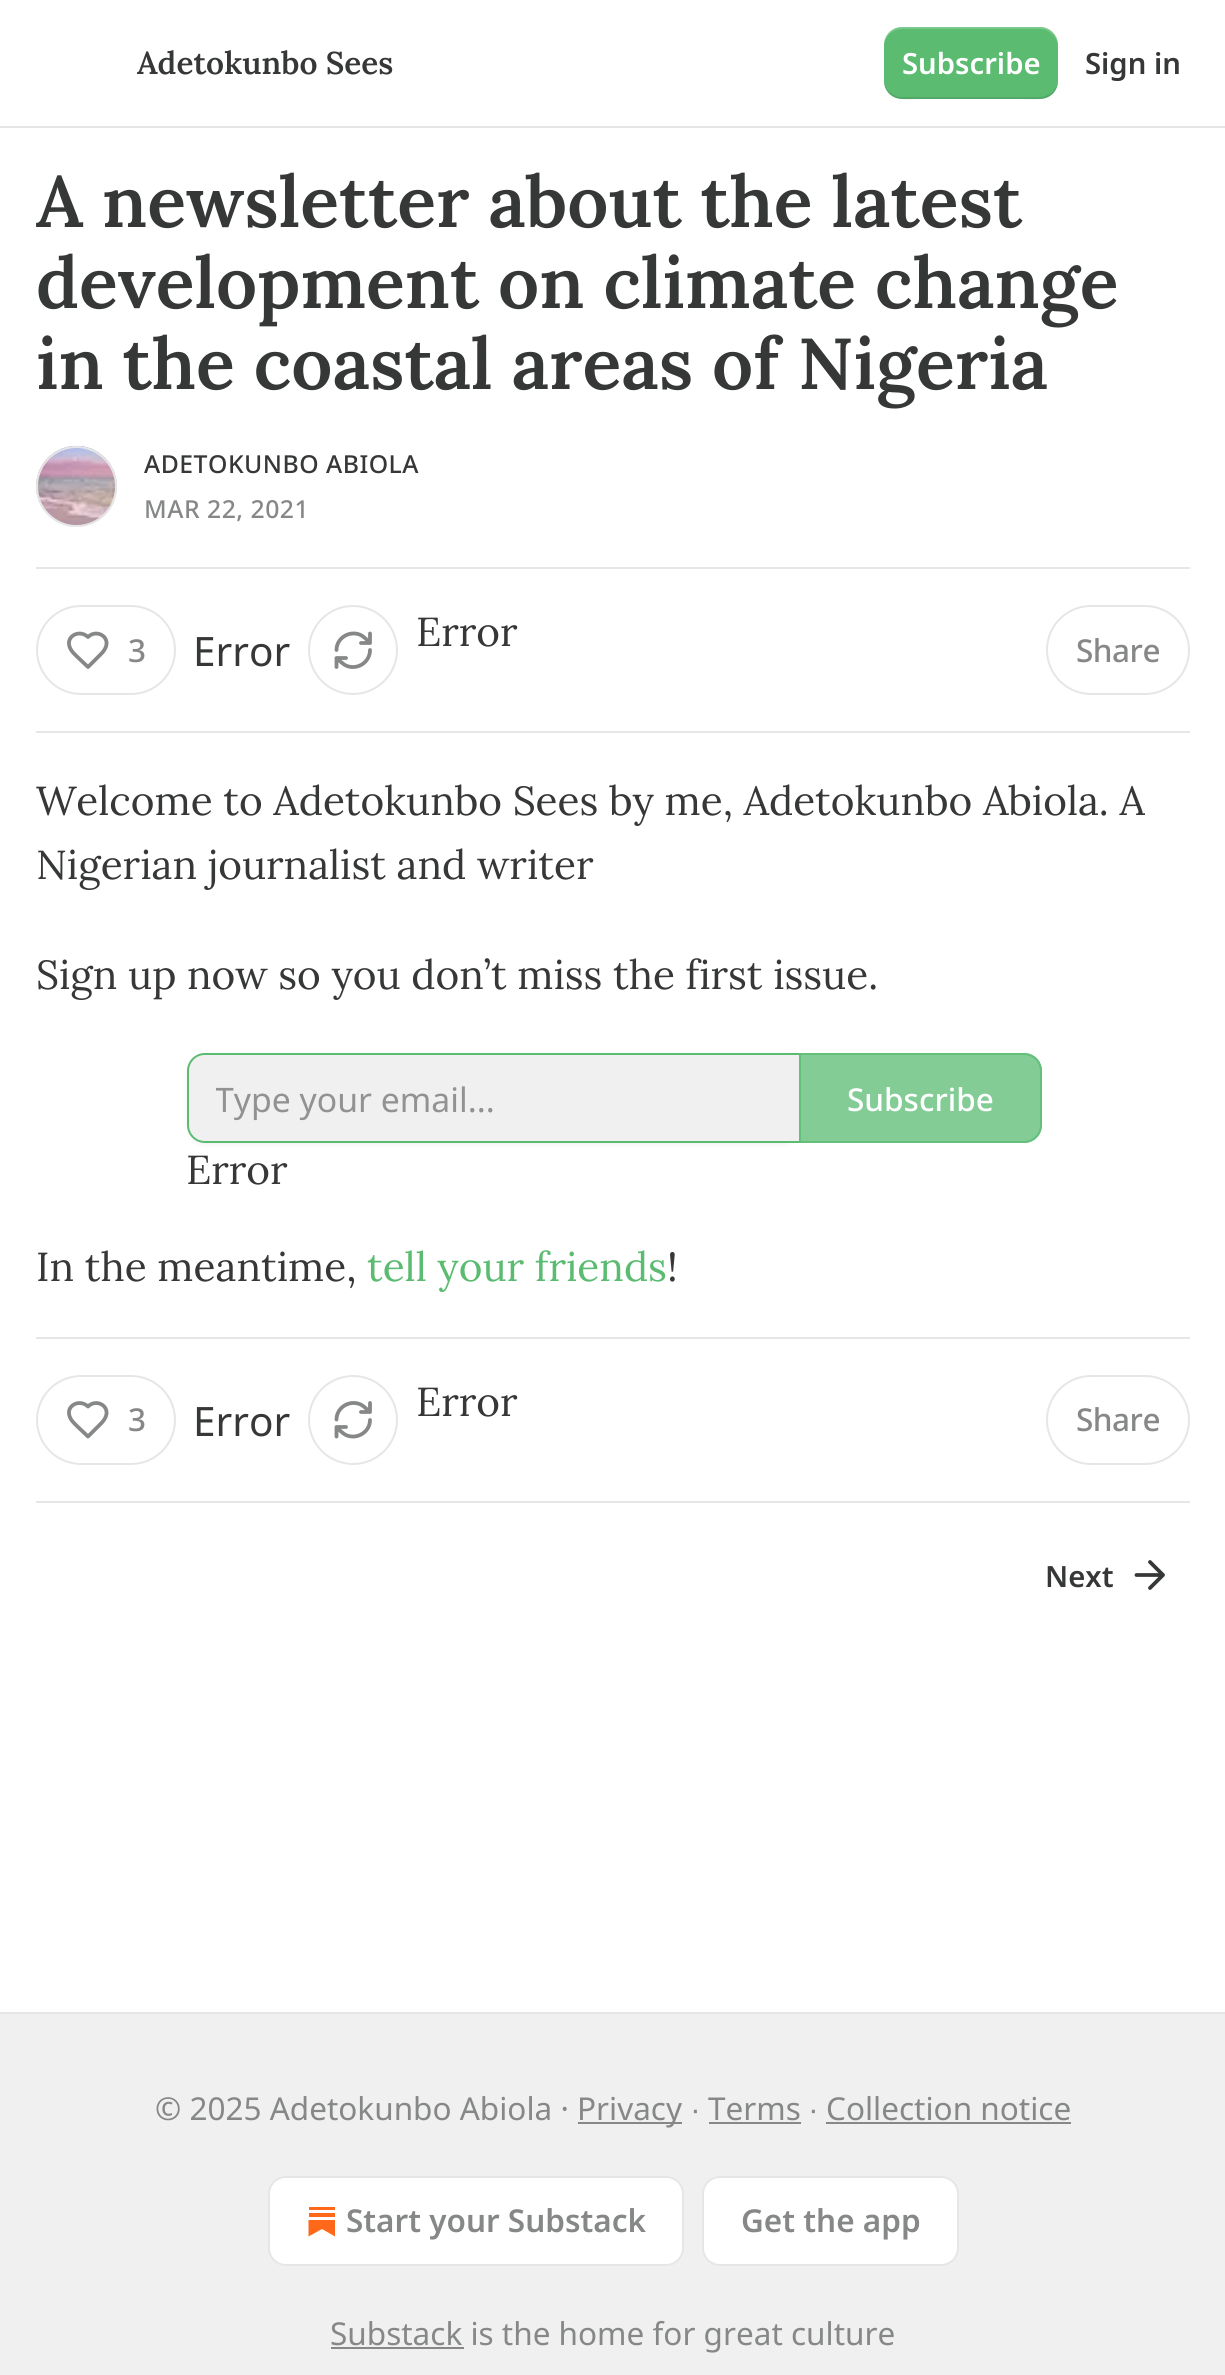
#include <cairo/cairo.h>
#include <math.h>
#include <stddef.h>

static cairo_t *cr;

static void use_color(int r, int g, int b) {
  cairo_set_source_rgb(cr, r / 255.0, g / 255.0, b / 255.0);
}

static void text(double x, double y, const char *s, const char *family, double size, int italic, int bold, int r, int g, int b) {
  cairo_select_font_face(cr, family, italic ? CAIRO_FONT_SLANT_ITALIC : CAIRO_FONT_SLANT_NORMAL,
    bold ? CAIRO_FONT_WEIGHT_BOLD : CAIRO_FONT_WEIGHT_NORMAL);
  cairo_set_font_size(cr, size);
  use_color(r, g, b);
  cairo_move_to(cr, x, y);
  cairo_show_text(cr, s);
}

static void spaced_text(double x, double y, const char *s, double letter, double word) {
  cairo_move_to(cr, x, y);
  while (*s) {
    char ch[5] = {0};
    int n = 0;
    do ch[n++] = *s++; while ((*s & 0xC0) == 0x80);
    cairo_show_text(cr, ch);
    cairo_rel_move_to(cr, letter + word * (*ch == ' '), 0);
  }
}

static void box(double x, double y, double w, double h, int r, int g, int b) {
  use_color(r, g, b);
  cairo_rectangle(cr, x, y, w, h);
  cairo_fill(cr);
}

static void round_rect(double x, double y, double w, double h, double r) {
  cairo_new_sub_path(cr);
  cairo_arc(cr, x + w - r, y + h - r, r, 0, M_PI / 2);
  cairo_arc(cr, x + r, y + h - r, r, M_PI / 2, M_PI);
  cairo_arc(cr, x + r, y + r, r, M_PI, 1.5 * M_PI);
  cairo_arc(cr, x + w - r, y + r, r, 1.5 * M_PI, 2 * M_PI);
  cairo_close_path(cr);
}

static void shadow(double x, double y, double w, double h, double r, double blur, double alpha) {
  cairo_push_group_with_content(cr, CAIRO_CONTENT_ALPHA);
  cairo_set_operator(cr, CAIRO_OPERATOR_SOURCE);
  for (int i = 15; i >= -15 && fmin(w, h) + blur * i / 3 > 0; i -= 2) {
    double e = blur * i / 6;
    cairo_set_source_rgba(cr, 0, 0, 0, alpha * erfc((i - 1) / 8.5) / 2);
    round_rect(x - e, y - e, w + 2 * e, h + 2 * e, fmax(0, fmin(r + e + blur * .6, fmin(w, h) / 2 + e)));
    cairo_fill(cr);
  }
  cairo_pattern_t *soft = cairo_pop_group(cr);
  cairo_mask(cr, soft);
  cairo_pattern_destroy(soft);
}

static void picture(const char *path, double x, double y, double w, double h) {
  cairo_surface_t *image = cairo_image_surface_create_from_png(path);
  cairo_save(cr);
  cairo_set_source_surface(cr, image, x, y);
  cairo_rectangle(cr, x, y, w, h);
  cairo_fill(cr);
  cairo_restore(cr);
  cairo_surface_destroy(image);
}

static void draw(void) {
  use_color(255, 255, 255);
  cairo_paint(cr);
  box(0, 126, 1225, 2, 230, 230, 230);
  use_color(90, 187, 113);
  round_rect(884, 27, 174, 72, 18);
  cairo_fill(cr);
  cairo_set_source_rgba(cr, 0, 0, 0, 0.1);
  cairo_new_path(cr);
  cairo_move_to(cr, 884, 79);
  cairo_curve_to(cr, 884, 104, 907, 99, 925, 99);
  cairo_line_to(cr, 1017, 99);
  cairo_curve_to(cr, 1035, 99, 1058, 104, 1058, 79);
  cairo_curve_to(cr, 1058, 89, 1049, 97, 1040, 97);
  cairo_line_to(cr, 902, 97);
  cairo_curve_to(cr, 892, 97, 884, 89, 884, 79);
  cairo_close_path(cr);
  cairo_fill(cr);
  cairo_set_source_rgba(cr, 1, 1, 1, 0.2);
  cairo_new_path(cr);
  cairo_move_to(cr, 902, 29);
  cairo_line_to(cr, 1040, 29);
  cairo_curve_to(cr, 1049, 29, 1058, 37, 1058, 47);
  cairo_curve_to(cr, 1058, 22, 1035, 27, 1017, 27);
  cairo_line_to(cr, 925, 27);
  cairo_curve_to(cr, 907, 27, 884, 22, 884, 47);
  cairo_curve_to(cr, 884, 37, 892, 29, 902, 29);
  cairo_close_path(cr);
  cairo_fill(cr);
  cairo_arc(cr, 76.5, 486.5, 39.5, 0, 2 * M_PI);
  use_color(230, 230, 230);
  cairo_stroke(cr);
  picture("img_01.png", 36, 445, 81, 82);
  cairo_arc(cr, 76.5, 486.5, 39.5, 0, 2 * M_PI);
  cairo_stroke(cr);
  box(36, 567, 1154, 2, 230, 230, 230);
  box(36, 731, 1154, 2, 230, 230, 230);
  cairo_arc(cr, 353, 650, 44, 0, 2 * M_PI);
  cairo_stroke(cr);
  cairo_new_path(cr);
  cairo_move_to(cr, 370, 633.5);
  cairo_line_to(cr, 370, 643);
  cairo_move_to(cr, 370, 643);
  cairo_line_to(cr, 361, 643);
  cairo_move_to(cr, 370, 643);
  cairo_curve_to(cr, 367, 640, 363.5, 636, 359.5, 634.5);
  cairo_curve_to(cr, 348.5, 630.5, 336.5, 638.5, 336.5, 650);
  cairo_move_to(cr, 336.5, 667);
  cairo_line_to(cr, 336.5, 658);
  cairo_move_to(cr, 336.5, 658);
  cairo_line_to(cr, 346, 658);
  cairo_move_to(cr, 336.5, 658);
  cairo_curve_to(cr, 339.5, 660.5, 343, 664.5, 347, 666);
  cairo_curve_to(cr, 358, 670, 370, 662, 370, 650);
  use_color(134, 135, 135);
  cairo_set_line_width(cr, 3.8);
  cairo_set_line_cap(cr, CAIRO_LINE_CAP_ROUND);
  cairo_set_line_join(cr, CAIRO_LINE_JOIN_ROUND);
  cairo_stroke(cr);
  round_rect(37, 606, 138, 88, 44);
  use_color(230, 230, 230);
  cairo_set_line_width(cr, 2);
  cairo_set_line_cap(cr, CAIRO_LINE_CAP_BUTT);
  cairo_set_line_join(cr, CAIRO_LINE_JOIN_MITER);
  cairo_stroke(cr);
  cairo_new_path(cr);
  cairo_move_to(cr, 101, 654);
  cairo_curve_to(cr, 103, 652, 105, 649.5, 106, 646.5);
  cairo_curve_to(cr, 109.5, 636, 96, 629, 88, 637);
  cairo_curve_to(cr, 79.5, 629, 66, 636, 69.5, 646.5);
  cairo_curve_to(cr, 71, 651.5, 75.5, 655, 79, 658.5);
  cairo_line_to(cr, 88, 667);
  cairo_close_path(cr);
  use_color(134, 135, 135);
  cairo_set_line_width(cr, 3.8);
  cairo_set_line_cap(cr, CAIRO_LINE_CAP_ROUND);
  cairo_set_line_join(cr, CAIRO_LINE_JOIN_ROUND);
  cairo_stroke(cr);
  round_rect(1047, 606, 142, 88, 44);
  use_color(230, 230, 230);
  cairo_set_line_width(cr, 2);
  cairo_set_line_cap(cr, CAIRO_LINE_CAP_BUTT);
  cairo_set_line_join(cr, CAIRO_LINE_JOIN_MITER);
  cairo_stroke(cr);
  use_color(0, 0, 0);
  shadow(187, 1055, 612, 90, 18, 2, 0.05);
  use_color(240, 240, 240);
  cairo_new_path(cr);
  cairo_move_to(cr, 205, 1055);
  cairo_line_to(cr, 799, 1055);
  cairo_line_to(cr, 799, 1141);
  cairo_line_to(cr, 205, 1141);
  cairo_curve_to(cr, 196, 1141, 189, 1134, 189, 1125);
  cairo_line_to(cr, 189, 1071);
  cairo_curve_to(cr, 189, 1062, 196, 1055, 205, 1055);
  cairo_close_path(cr);
  cairo_fill(cr);
  use_color(90, 187, 113);
  cairo_set_fill_rule(cr, CAIRO_FILL_RULE_EVEN_ODD);
  cairo_new_path(cr);
  cairo_move_to(cr, 205, 1053);
  cairo_line_to(cr, 799, 1053);
  cairo_line_to(cr, 799, 1143);
  cairo_line_to(cr, 205, 1143);
  cairo_curve_to(cr, 195, 1143, 187, 1135, 187, 1125);
  cairo_line_to(cr, 187, 1071);
  cairo_curve_to(cr, 187, 1061, 195, 1053, 205, 1053);
  cairo_close_path(cr);
  cairo_move_to(cr, 205, 1055);
  cairo_line_to(cr, 799, 1055);
  cairo_line_to(cr, 799, 1141);
  cairo_line_to(cr, 205, 1141);
  cairo_curve_to(cr, 196, 1141, 189, 1134, 189, 1125);
  cairo_line_to(cr, 189, 1071);
  cairo_curve_to(cr, 189, 1062, 196, 1055, 205, 1055);
  cairo_close_path(cr);
  cairo_fill(cr);
  cairo_set_source_rgba(cr, 0.353, 0.733, 0.443, 0.75);
  cairo_new_path(cr);
  cairo_move_to(cr, 799, 1053);
  cairo_line_to(cr, 1024, 1053);
  cairo_curve_to(cr, 1034, 1053, 1042, 1061, 1042, 1071);
  cairo_line_to(cr, 1042, 1125);
  cairo_curve_to(cr, 1042, 1135, 1034, 1143, 1024, 1143);
  cairo_line_to(cr, 799, 1143);
  cairo_close_path(cr);
  cairo_fill(cr);
  cairo_new_path(cr);
  cairo_move_to(cr, 800, 1054);
  cairo_line_to(cr, 1024, 1054);
  cairo_curve_to(cr, 1033.5, 1054, 1041, 1061.5, 1041, 1071);
  cairo_line_to(cr, 1041, 1125);
  cairo_curve_to(cr, 1041, 1134.5, 1033.5, 1142, 1024, 1142);
  cairo_line_to(cr, 800, 1142);
  cairo_close_path(cr);
  cairo_stroke(cr);
  box(36, 1337, 1154, 2, 230, 230, 230);
  box(36, 1501, 1154, 2, 230, 230, 230);
  cairo_arc(cr, 353, 1420, 44, 0, 2 * M_PI);
  cairo_stroke(cr);
  cairo_new_path(cr);
  cairo_move_to(cr, 370, 1403);
  cairo_line_to(cr, 370, 1412);
  cairo_move_to(cr, 370, 1412);
  cairo_line_to(cr, 361, 1412);
  cairo_move_to(cr, 370, 1412);
  cairo_curve_to(cr, 367, 1409.5, 363.5, 1405.5, 359.5, 1404);
  cairo_curve_to(cr, 348.5, 1400, 336.5, 1408, 336.5, 1419.5);
  cairo_move_to(cr, 336.5, 1436.5);
  cairo_line_to(cr, 336.5, 1427);
  cairo_move_to(cr, 336.5, 1427);
  cairo_line_to(cr, 346, 1427);
  cairo_move_to(cr, 336.5, 1427);
  cairo_curve_to(cr, 339.5, 1430, 343, 1434, 347, 1435.5);
  cairo_curve_to(cr, 358, 1439.5, 370, 1431.5, 370, 1420);
  use_color(134, 135, 135);
  cairo_set_line_width(cr, 3.8);
  cairo_set_line_cap(cr, CAIRO_LINE_CAP_ROUND);
  cairo_set_line_join(cr, CAIRO_LINE_JOIN_ROUND);
  cairo_stroke(cr);
  round_rect(37, 1376, 138, 88, 44);
  use_color(230, 230, 230);
  cairo_set_line_width(cr, 2);
  cairo_set_line_cap(cr, CAIRO_LINE_CAP_BUTT);
  cairo_set_line_join(cr, CAIRO_LINE_JOIN_MITER);
  cairo_stroke(cr);
  cairo_new_path(cr);
  cairo_move_to(cr, 101, 1423.5);
  cairo_curve_to(cr, 103, 1421.5, 105, 1419, 106, 1416);
  cairo_curve_to(cr, 109.5, 1405.5, 96, 1398.5, 88, 1406.5);
  cairo_curve_to(cr, 79.5, 1398.5, 66, 1405.5, 69.5, 1416);
  cairo_curve_to(cr, 71, 1421, 75.5, 1424.5, 79, 1428);
  cairo_line_to(cr, 88, 1436.5);
  cairo_close_path(cr);
  use_color(134, 135, 135);
  cairo_set_line_width(cr, 3.8);
  cairo_set_line_cap(cr, CAIRO_LINE_CAP_ROUND);
  cairo_set_line_join(cr, CAIRO_LINE_JOIN_ROUND);
  cairo_stroke(cr);
  round_rect(1047, 1376, 142, 88, 44);
  use_color(230, 230, 230);
  cairo_set_line_width(cr, 2);
  cairo_set_line_cap(cr, CAIRO_LINE_CAP_BUTT);
  cairo_set_line_join(cr, CAIRO_LINE_JOIN_MITER);
  cairo_stroke(cr);
  cairo_new_path(cr);
  cairo_move_to(cr, 1136.5, 1575);
  cairo_line_to(cr, 1163, 1575);
  cairo_move_to(cr, 1150, 1562);
  cairo_line_to(cr, 1163, 1575);
  cairo_line_to(cr, 1150, 1588);
  use_color(54, 55, 55);
  cairo_set_line_width(cr, 3.8);
  cairo_set_line_cap(cr, CAIRO_LINE_CAP_ROUND);
  cairo_set_line_join(cr, CAIRO_LINE_JOIN_ROUND);
  cairo_stroke(cr);
  box(0, 2014, 1225, 361, 240, 240, 240);
  box(0, 2012, 1225, 2, 230, 230, 230);
  box(578, 2122, 104, 2, 134, 135, 135);
  box(709, 2122, 92, 2, 134, 135, 135);
  box(826, 2122, 245, 2, 134, 135, 135);
  use_color(255, 255, 255);
  round_rect(269, 2177, 414, 88, 17);
  cairo_fill_preserve(cr);
  use_color(230, 230, 230);
  cairo_set_line_width(cr, 2);
  cairo_set_line_cap(cr, CAIRO_LINE_CAP_BUTT);
  cairo_set_line_join(cr, CAIRO_LINE_JOIN_MITER);
  cairo_stroke(cr);
  box(309, 2213, 26, 4, 255, 103, 25);
  cairo_set_fill_rule(cr, CAIRO_FILL_RULE_WINDING);
  cairo_new_path(cr);
  cairo_move_to(cr, 308.5, 2220);
  cairo_line_to(cr, 308.5, 2236.5);
  cairo_line_to(cr, 322, 2229);
  cairo_line_to(cr, 335, 2236.5);
  cairo_line_to(cr, 335, 2220);
  cairo_close_path(cr);
  cairo_fill(cr);
  box(309, 2207, 26, 3, 255, 103, 25);
  use_color(255, 255, 255);
  round_rect(703, 2177, 255, 88, 17);
  cairo_fill_preserve(cr);
  use_color(230, 230, 230);
  cairo_stroke(cr);
  box(331, 2347, 133, 2, 134, 135, 135);
  text(137, 74, "Adetokunbo Sees", "Lora SemiBold", 31.5, 0, 0, 54, 55, 55);
  text(902, 74, "Subscribe", "Noto Sans SemiBold", 29.25, 0, 0, 255, 255, 255);
  text(1085, 74, "Sign in", "Noto Sans SemiBold", 29.25, 0, 0, 54, 55, 55);
  text(36, 227, "A newsletter about the latest", "Lora SemiBold", 72, 0, 0, 54, 55, 55);
  text(36, 308, "development on climate change", "Lora SemiBold", 72, 0, 0, 54, 55, 55);
  text(36, 389, "in the coastal areas of Nigeria", "Lora SemiBold", 72, 0, 0, 54, 55, 55);
  cairo_select_font_face(cr, "Noto Sans Medium", CAIRO_FONT_SLANT_NORMAL, CAIRO_FONT_WEIGHT_NORMAL);
  cairo_set_font_size(cr, 24.75);
  spaced_text(144, 473, "ADETOKUNBO ABIOLA", 0.5, 0);
  use_color(134, 135, 135);
  spaced_text(144, 518, "MAR 22, 2021", 0.5, 0);
  text(416, 646, "Error", "Lora", 40.5, 0, 0, 54, 55, 55);
  cairo_select_font_face(cr, "Noto Sans Medium", CAIRO_FONT_SLANT_NORMAL, CAIRO_FONT_WEIGHT_NORMAL);
  cairo_set_font_size(cr, 31.5);
  use_color(134, 135, 135);
  spaced_text(128, 662, "3", -0.5, 0);
  text(193, 666, "Error", "Noto Sans", 40.5, 0, 0, 54, 55, 55);
  cairo_select_font_face(cr, "Noto Sans Medium", CAIRO_FONT_SLANT_NORMAL, CAIRO_FONT_WEIGHT_NORMAL);
  cairo_set_font_size(cr, 31.5);
  use_color(134, 135, 135);
  spaced_text(1076, 662, "Share", -0.5, 0);
  text(36, 815, "Welcome to Adetokunbo Sees by me, Adetokunbo Abiola. A", "Lora", 40.5, 0, 0, 54, 55, 55);
  text(36, 879, "Nigerian journalist and writer", "Lora", 40.5, 0, 0, 54, 55, 55);
  text(36, 989, "Sign up now so you don’t miss the first issue.", "Lora", 40.5, 0, 0, 54, 55, 55);
  cairo_save(cr);
  cairo_rectangle(cr, 216, 1076, 556, 45);
  cairo_clip(cr);
  text(215, 1112, "Type your email...", "Noto Sans", 33.75, 0, 0, 146, 146, 146);
  cairo_restore(cr);
  text(847, 1111, "Subscribe", "Noto Sans Medium", 31.5, 0, 0, 255, 255, 255);
  text(186, 1184, "Error", "Lora", 40.5, 0, 0, 54, 55, 55);
  text(36, 1281, "In the meantime,", "Lora", 40.5, 0, 0, 54, 55, 55);
  text(367, 1281, "tell your friends", "Lora", 40.5, 0, 0, 90, 187, 113);
  text(667, 1281, "!", "Lora", 40.5, 0, 0, 54, 55, 55);
  text(416, 1416, "Error", "Lora", 40.5, 0, 0, 54, 55, 55);
  cairo_select_font_face(cr, "Noto Sans Medium", CAIRO_FONT_SLANT_NORMAL, CAIRO_FONT_WEIGHT_NORMAL);
  cairo_set_font_size(cr, 31.5);
  use_color(134, 135, 135);
  spaced_text(128, 1431, "3", -0.5, 0);
  text(193, 1436, "Error", "Noto Sans", 40.5, 0, 0, 54, 55, 55);
  cairo_select_font_face(cr, "Noto Sans Medium", CAIRO_FONT_SLANT_NORMAL, CAIRO_FONT_WEIGHT_NORMAL);
  cairo_set_font_size(cr, 31.5);
  use_color(134, 135, 135);
  spaced_text(1076, 1431, "Share", -0.5, 0);
  text(1045, 1587, "Next", "Noto Sans SemiBold", 29.25, 0, 0, 54, 55, 55);
  text(155, 2120, "© 2025 Adetokunbo Abiola ·", "Noto Sans", 31.5, 0, 0, 134, 135, 135);
  text(577, 2120, "Privacy", "Noto Sans", 31.5, 0, 0, 134, 135, 135);
  text(691, 2120, "∙", "Liberation Sans", 31.5, 0, 0, 134, 135, 135);
  text(708, 2120, "Terms", "Noto Sans", 31.5, 0, 0, 134, 135, 135);
  text(809, 2120, "∙", "Liberation Sans", 31.5, 0, 0, 134, 135, 135);
  text(826, 2120, "Collection notice", "Noto Sans", 31.5, 0, 0, 134, 135, 135);
  text(346, 2232, "Start your Substack", "Noto Sans SemiBold", 31.5, 0, 0, 134, 135, 135);
  text(741, 2232, "Get the app", "Noto Sans SemiBold", 31.5, 0, 0, 134, 135, 135);
  text(330, 2345, "Substack is the home for great culture", "Noto Sans", 31.5, 0, 0, 134, 135, 135);
}

int main(void) {
  cairo_surface_t *surface = cairo_image_surface_create(CAIRO_FORMAT_RGB24, 1225, 2375);
  cr = cairo_create(surface);
  cairo_font_options_t *options = cairo_font_options_create();
  cairo_font_options_set_hint_metrics(options, CAIRO_HINT_METRICS_OFF);
  cairo_font_options_set_hint_style(options, CAIRO_HINT_STYLE_NONE);
  cairo_set_font_options(cr, options);
  cairo_set_miter_limit(cr, 4);
  draw();
  cairo_surface_write_to_png(surface, "out.png");
  cairo_font_options_destroy(options);
  cairo_destroy(cr);
  cairo_surface_destroy(surface);
  return 0;
}
